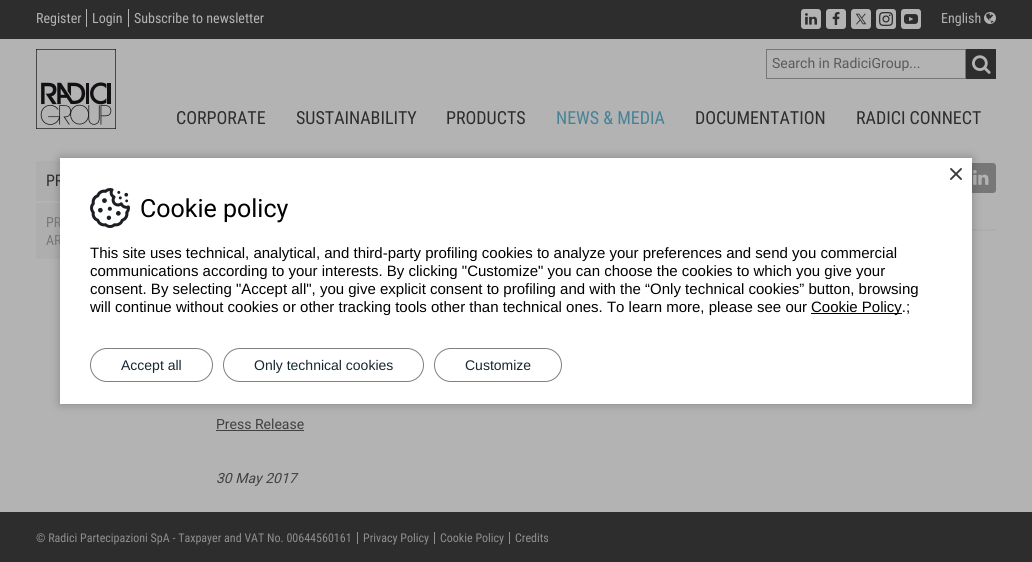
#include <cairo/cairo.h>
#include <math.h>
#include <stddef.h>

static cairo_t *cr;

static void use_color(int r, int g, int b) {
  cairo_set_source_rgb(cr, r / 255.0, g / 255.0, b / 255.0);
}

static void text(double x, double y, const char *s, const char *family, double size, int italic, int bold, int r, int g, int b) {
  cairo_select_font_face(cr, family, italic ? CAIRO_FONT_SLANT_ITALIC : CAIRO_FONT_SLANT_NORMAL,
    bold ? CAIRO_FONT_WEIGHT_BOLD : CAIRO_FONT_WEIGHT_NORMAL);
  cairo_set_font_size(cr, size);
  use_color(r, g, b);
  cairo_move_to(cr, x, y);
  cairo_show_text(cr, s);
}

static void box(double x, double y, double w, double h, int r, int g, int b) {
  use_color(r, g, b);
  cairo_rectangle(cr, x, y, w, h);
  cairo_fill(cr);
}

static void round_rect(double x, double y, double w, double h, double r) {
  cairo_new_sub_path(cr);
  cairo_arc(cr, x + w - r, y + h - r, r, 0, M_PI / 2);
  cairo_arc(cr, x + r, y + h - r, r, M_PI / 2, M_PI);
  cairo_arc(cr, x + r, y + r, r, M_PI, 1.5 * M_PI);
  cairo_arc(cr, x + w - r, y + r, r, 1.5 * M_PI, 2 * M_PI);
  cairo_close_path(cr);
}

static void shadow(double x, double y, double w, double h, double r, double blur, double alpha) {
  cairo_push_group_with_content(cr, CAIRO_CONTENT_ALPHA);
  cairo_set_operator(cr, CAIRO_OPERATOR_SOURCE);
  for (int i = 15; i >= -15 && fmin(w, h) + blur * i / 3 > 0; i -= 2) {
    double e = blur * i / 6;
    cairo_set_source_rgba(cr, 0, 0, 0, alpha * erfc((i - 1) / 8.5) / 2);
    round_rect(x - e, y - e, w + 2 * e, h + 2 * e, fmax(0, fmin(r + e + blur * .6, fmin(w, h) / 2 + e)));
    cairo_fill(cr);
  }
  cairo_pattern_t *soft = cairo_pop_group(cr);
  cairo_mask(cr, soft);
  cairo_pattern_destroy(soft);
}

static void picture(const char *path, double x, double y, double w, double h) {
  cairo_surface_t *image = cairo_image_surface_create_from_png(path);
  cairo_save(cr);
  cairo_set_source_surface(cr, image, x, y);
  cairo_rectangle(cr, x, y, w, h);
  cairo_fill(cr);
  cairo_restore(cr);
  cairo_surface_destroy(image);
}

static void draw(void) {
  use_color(45, 45, 45);
  cairo_paint(cr);
  box(86, 9, 1, 18, 179, 179, 179);
  box(128, 9, 1, 18, 179, 179, 179);
  round_rect(801, 9, 20, 20, 3);
  cairo_fill(cr);
  picture("img_01.png", 805, 13, 12, 12);
  round_rect(826, 9, 20, 20, 3);
  cairo_fill(cr);
  picture("img_02.png", 832, 12, 8, 13);
  round_rect(851, 9, 20, 20, 3);
  cairo_fill(cr);
  picture("img_03.png", 855, 13, 12, 12);
  round_rect(876, 9, 20, 20, 3);
  cairo_fill(cr);
  picture("img_04.png", 879, 12, 14, 14);
  round_rect(901, 9, 20, 20, 3);
  cairo_fill(cr);
  picture("img_05.png", 904, 14, 14, 10);
  picture("img_06.png", 984, 12, 12, 12);
  box(0, 39, 1032, 473, 179, 179, 179);
  picture("img_07.png", 36, 49, 80, 80);
  cairo_rectangle(cr, 766.5, 49.5, 199, 29);
  use_color(119, 119, 119);
  cairo_set_line_width(cr, 1);
  cairo_stroke(cr);
  box(966, 49, 30, 30, 45, 45, 45);
  picture("img_08.png", 972, 55, 19, 19);
  box(36, 161, 24, 40, 174, 174, 174);
  box(36, 203, 24, 56, 174, 174, 174);
  box(972, 229, 24, 2, 174, 174, 174);
  use_color(119, 119, 119);
  round_rect(966, 163, 30, 30, 3);
  cairo_fill(cr);
  picture("img_09.png", 973, 170, 16, 15);
  box(216, 430, 88, 1, 65, 65, 65);
  use_color(0, 0, 0);
  shadow(60, 158, 912, 246, 0, 5, 0.25);
  box(357, 532, 1, 12, 143, 143, 143);
  box(434, 532, 1, 12, 143, 143, 143);
  box(509, 532, 1, 12, 143, 143, 143);
  text(36, 23, "Register", "Roboto Condensed", 14, 0, 0, 179, 179, 179);
  text(92, 23, "Login", "Roboto Condensed", 14, 0, 0, 179, 179, 179);
  text(134, 23, "Subscribe to newsletter", "Roboto Condensed", 14, 0, 0, 179, 179, 179);
  text(941, 23, "English", "Roboto Condensed", 14, 0, 0, 179, 179, 179);
  text(772, 68, "Search in RadiciGroup...", "Roboto", 14, 0, 0, 90, 90, 90);
  text(176, 124, "CORPORATE", "Roboto Condensed", 18, 0, 0, 45, 45, 45);
  text(296, 124, "SUSTAINABILITY", "Roboto Condensed", 18, 0, 0, 45, 45, 45);
  text(446, 124, "PRODUCTS", "Roboto Condensed", 18, 0, 0, 45, 45, 45);
  text(556, 124, "NEWS & MEDIA", "Roboto Condensed", 18, 0, 0, 71, 130, 149);
  text(695, 124, "DOCUMENTATION", "Roboto Condensed", 18, 0, 0, 45, 45, 45);
  text(856, 124, "RADICI CONNECT", "Roboto Condensed", 18, 0, 0, 45, 45, 45);
  text(46, 186, "PR", "Roboto Condensed", 16, 0, 0, 45, 45, 45);
  text(46, 227, "PR", "Roboto Condensed", 14, 0, 0, 119, 119, 119);
  text(46, 245, "AR", "Roboto Condensed", 14, 0, 0, 119, 119, 119);
  text(216, 429, "Press Release", "Roboto", 14, 0, 0, 65, 65, 65);
  text(216, 483, "30 May 2017", "Roboto", 14, 1, 0, 65, 65, 65);
  box(60, 158, 912, 246, 255, 255, 255);
  picture("img_10.png", 950, 168, 12, 12);
  picture("img_11.png", 90, 188, 40, 40);
  text(140, 217, "Cookie policy", "Roboto", 25, 0, 0, 0, 0, 0);
  text(90, 258, "This site uses technical, analytical, and third-party profiling cookies to analyze your preferences and send you commercial", "Liberation Sans", 15, 0, 0, 0, 0, 0);
  text(90, 276, "communications according to your interests. By clicking \"Customize\" you can choose the cookies to which you give your", "Liberation Sans", 15, 0, 0, 0, 0, 0);
  text(90, 294, "consent. By selecting \"Accept all\", you give explicit consent to profiling and with the “Only technical cookies” button, browsing", "Liberation Sans", 15, 0, 0, 0, 0, 0);
  text(90, 312, "will continue without cookies or other tracking tools other than technical ones. To learn more, please see our", "Liberation Sans", 15, 0, 0, 0, 0, 0);
  box(811, 313, 91, 1, 0, 0, 0);
  text(811, 312, "Cookie Policy.;", "Liberation Sans", 15, 0, 0, 0, 0, 0);
  round_rect(90.5, 348.5, 122, 33, 16.5);
  use_color(128, 128, 128);
  cairo_stroke(cr);
  text(121, 370, "Accept all", "Liberation Sans", 14, 0, 0, 23, 39, 47);
  round_rect(223.5, 348.5, 200, 33, 16.5);
  use_color(128, 128, 128);
  cairo_stroke(cr);
  text(254, 370, "Only technical cookies", "Liberation Sans", 14, 0, 0, 23, 39, 47);
  round_rect(434.5, 348.5, 127, 33, 16.5);
  use_color(128, 128, 128);
  cairo_stroke(cr);
  text(465, 370, "Customize", "Liberation Sans", 14, 0, 0, 23, 39, 47);
  text(36, 542, "© Radici Partecipazioni SpA - Taxpayer and VAT No. 00644560161", "Roboto Condensed", 12, 0, 0, 143, 143, 143);
  text(363, 542, "Privacy Policy", "Roboto Condensed", 12, 0, 0, 143, 143, 143);
  text(440, 542, "Cookie Policy", "Roboto Condensed", 12, 0, 0, 143, 143, 143);
  text(515, 542, "Credits", "Roboto Condensed", 12, 0, 0, 143, 143, 143);
}

int main(void) {
  cairo_surface_t *surface = cairo_image_surface_create(CAIRO_FORMAT_RGB24, 1032, 562);
  cr = cairo_create(surface);
  cairo_font_options_t *options = cairo_font_options_create();
  cairo_font_options_set_hint_metrics(options, CAIRO_HINT_METRICS_OFF);
  cairo_font_options_set_hint_style(options, CAIRO_HINT_STYLE_NONE);
  cairo_set_font_options(cr, options);
  cairo_set_miter_limit(cr, 4);
  draw();
  cairo_surface_write_to_png(surface, "out.png");
  cairo_font_options_destroy(options);
  cairo_destroy(cr);
  cairo_surface_destroy(surface);
  return 0;
}
